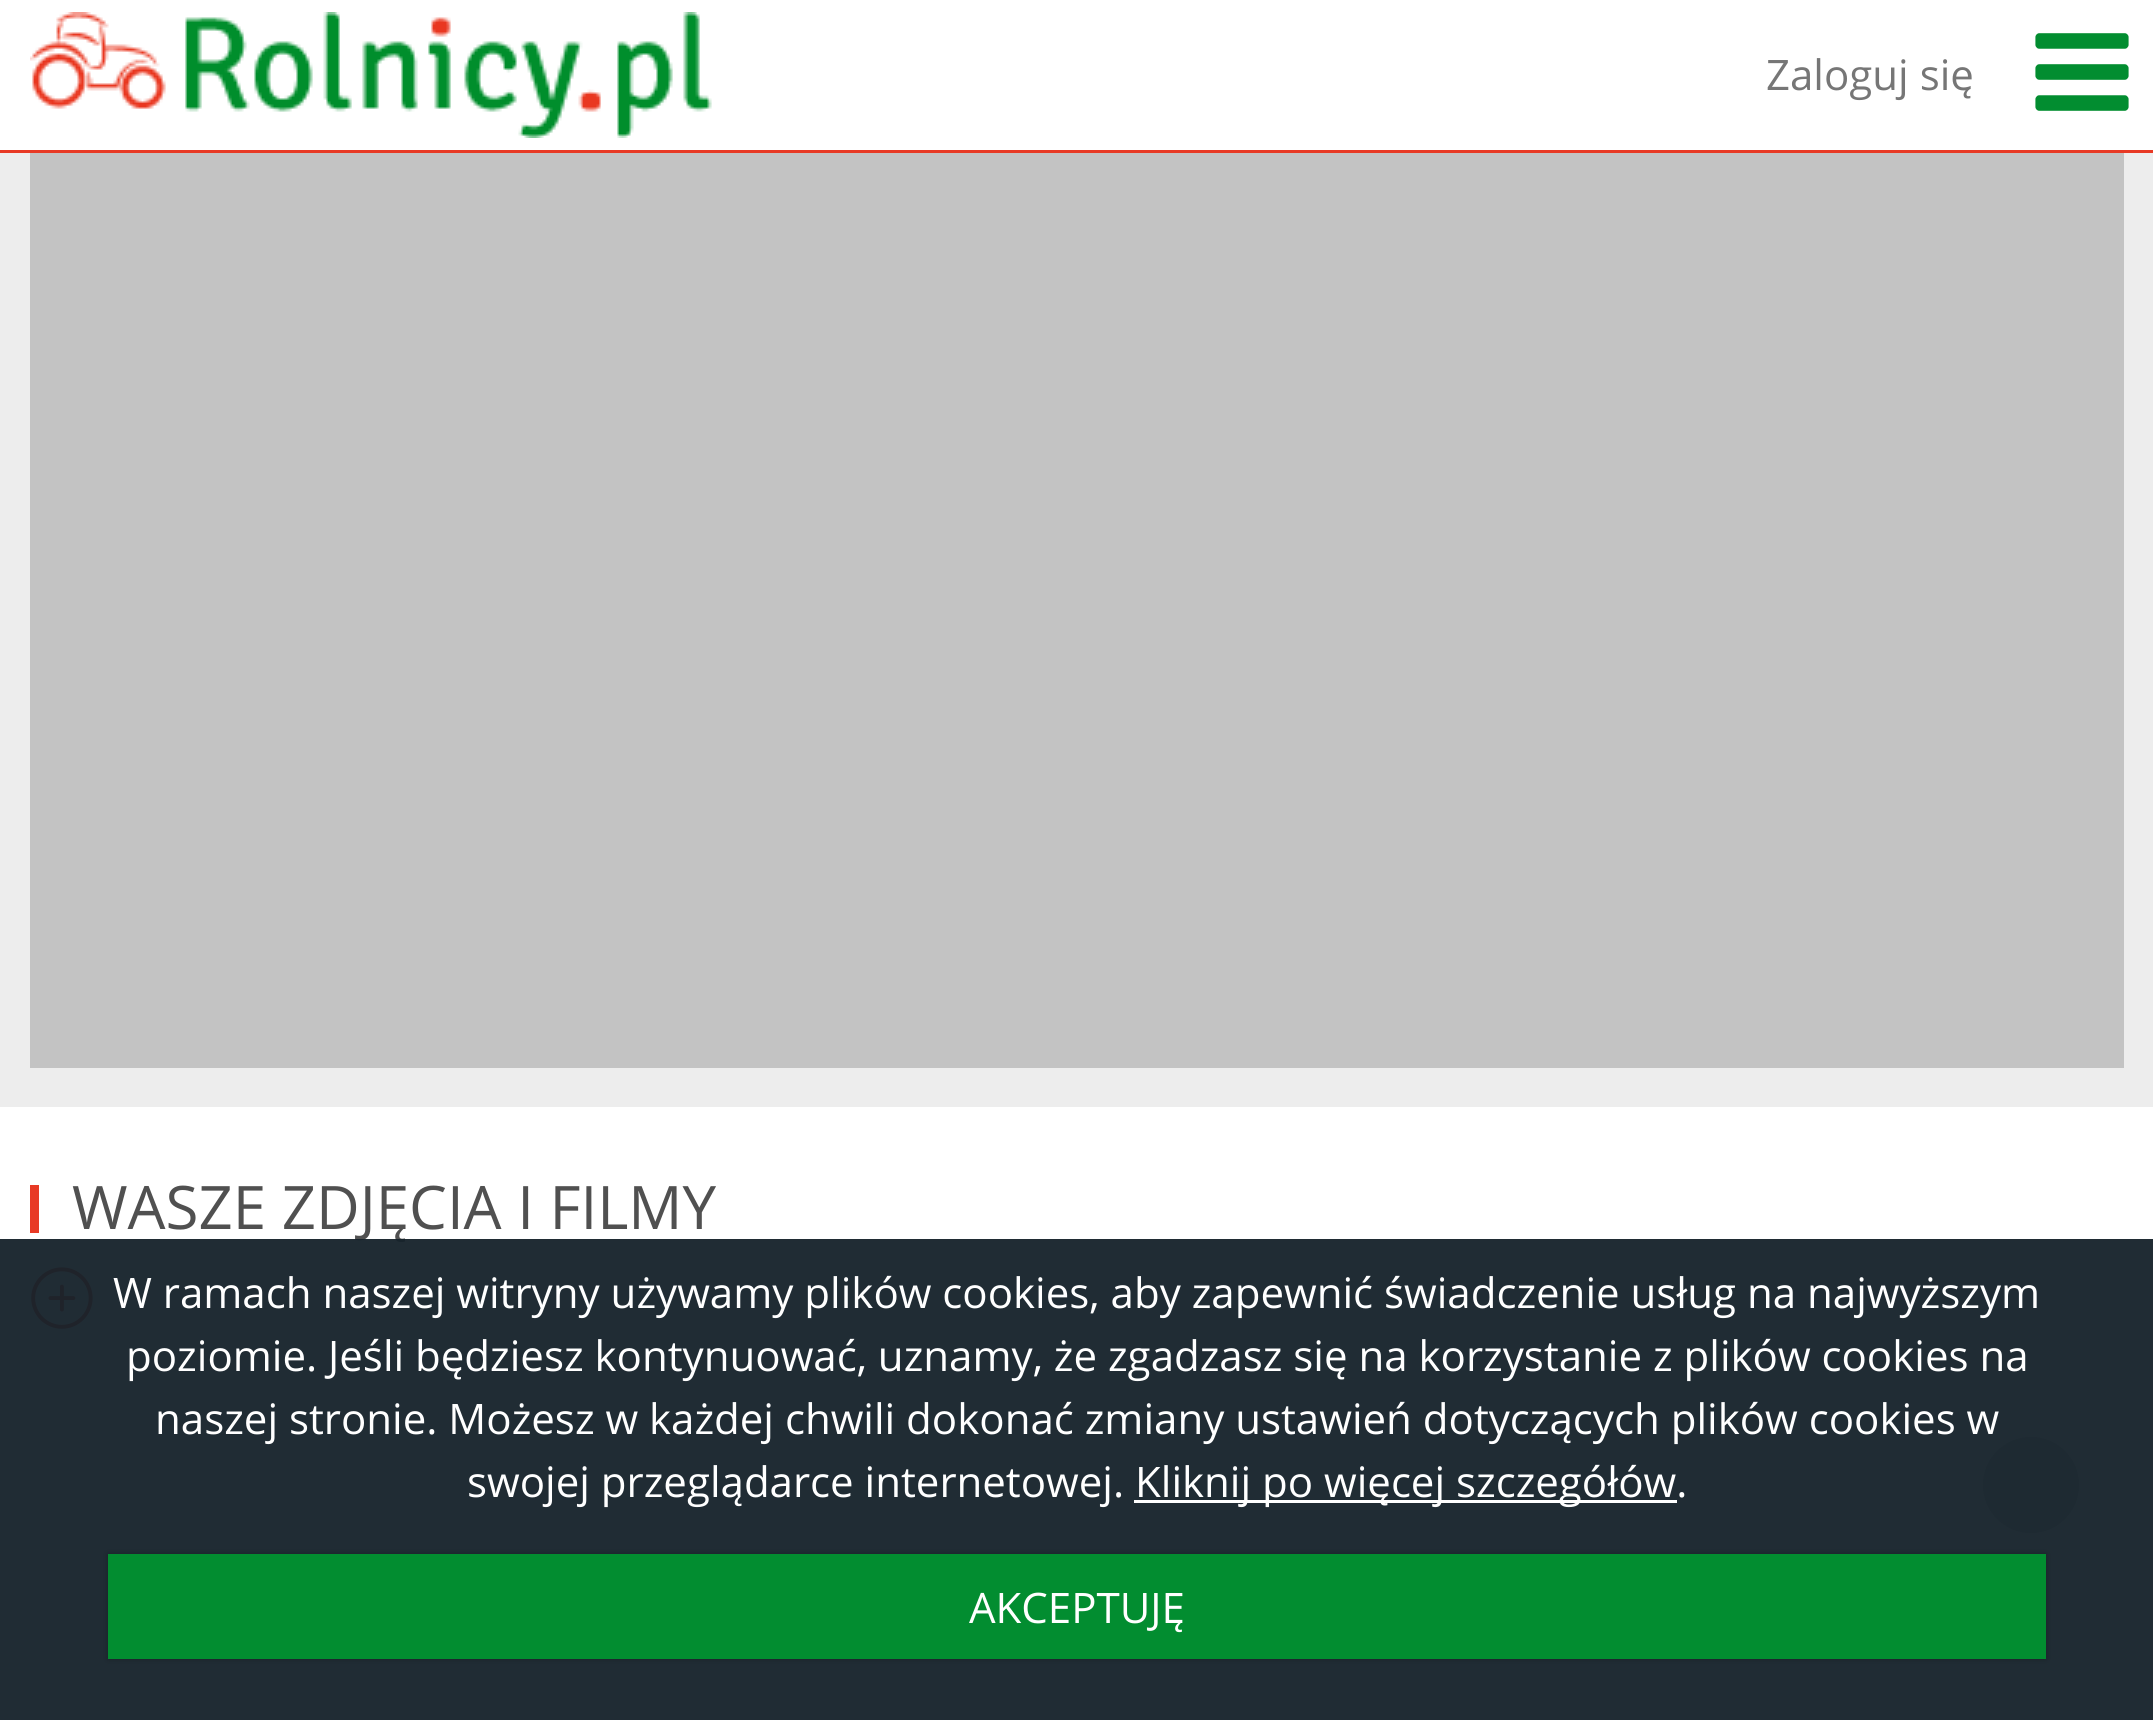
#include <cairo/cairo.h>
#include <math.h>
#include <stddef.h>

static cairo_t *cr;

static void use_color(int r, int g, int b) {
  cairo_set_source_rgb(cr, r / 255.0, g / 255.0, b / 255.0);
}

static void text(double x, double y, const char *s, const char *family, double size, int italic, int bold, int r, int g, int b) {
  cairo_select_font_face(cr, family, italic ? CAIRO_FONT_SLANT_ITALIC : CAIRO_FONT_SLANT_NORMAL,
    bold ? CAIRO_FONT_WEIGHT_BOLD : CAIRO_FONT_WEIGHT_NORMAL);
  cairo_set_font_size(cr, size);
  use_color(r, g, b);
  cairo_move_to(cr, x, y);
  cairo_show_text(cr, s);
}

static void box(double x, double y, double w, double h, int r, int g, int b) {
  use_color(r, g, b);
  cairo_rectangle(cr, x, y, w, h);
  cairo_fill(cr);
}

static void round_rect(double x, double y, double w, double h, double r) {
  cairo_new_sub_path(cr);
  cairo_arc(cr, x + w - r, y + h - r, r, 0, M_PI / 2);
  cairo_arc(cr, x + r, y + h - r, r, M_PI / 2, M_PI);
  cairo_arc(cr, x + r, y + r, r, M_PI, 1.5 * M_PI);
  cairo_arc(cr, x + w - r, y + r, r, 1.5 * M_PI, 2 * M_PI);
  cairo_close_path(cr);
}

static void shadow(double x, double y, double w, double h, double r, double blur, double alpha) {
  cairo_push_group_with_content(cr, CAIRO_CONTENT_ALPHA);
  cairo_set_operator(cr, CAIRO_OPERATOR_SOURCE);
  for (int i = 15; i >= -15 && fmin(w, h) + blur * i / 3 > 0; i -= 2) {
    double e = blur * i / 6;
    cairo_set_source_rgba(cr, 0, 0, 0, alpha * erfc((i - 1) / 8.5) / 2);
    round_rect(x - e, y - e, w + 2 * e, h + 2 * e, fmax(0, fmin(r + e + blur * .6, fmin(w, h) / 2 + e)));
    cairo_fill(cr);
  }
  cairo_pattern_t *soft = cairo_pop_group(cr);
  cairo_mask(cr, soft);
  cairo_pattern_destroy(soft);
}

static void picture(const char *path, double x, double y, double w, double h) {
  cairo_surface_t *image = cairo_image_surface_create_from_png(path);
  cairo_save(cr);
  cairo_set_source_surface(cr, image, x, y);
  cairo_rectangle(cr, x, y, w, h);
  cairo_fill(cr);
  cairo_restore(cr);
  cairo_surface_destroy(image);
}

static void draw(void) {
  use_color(255, 255, 255);
  cairo_paint(cr);
  box(0, 150, 2153, 3, 232, 58, 37);
  picture("img_01.png", 30, 12, 682, 126);
  picture("img_02.png", 2035, 33, 94, 78);
  box(0, 153, 2153, 954, 237, 237, 237);
  box(30, 153, 2094, 915, 195, 195, 195);
  box(30, 1185, 9, 48, 232, 58, 37);
  picture("img_03.png", 31, 1267, 62, 62);
  use_color(203, 203, 203);
  cairo_arc(cr, 2031, 1485, 51, 0, 2 * M_PI);
  cairo_fill_preserve(cr);
  use_color(255, 255, 255);
  cairo_set_line_width(cr, 6);
  cairo_stroke(cr);
  text(1766, 90, "Zaloguj się", "Open Sans", 42, 0, 0, 118, 118, 118);
  text(72, 1229, "WASZE ZDJĘCIA I FILMY", "Open Sans", 60, 0, 0, 80, 80, 80);
  cairo_set_source_rgba(cr, 0.086, 0.133, 0.165, 0.95);
  cairo_rectangle(cr, 0, 1239, 2153, 481);
  cairo_fill(cr);
  text(113, 1308, "W ramach naszej witryny używamy plików cookies, aby zapewnić świadczenie usług na najwyższym", "Open Sans", 42, 0, 0, 255, 255, 255);
  text(126, 1371, "poziomie. Jeśli będziesz kontynuować, uznamy, że zgadzasz się na korzystanie z plików cookies na", "Open Sans", 42, 0, 0, 255, 255, 255);
  text(155, 1434, "naszej stronie. Możesz w każdej chwili dokonać zmiany ustawień dotyczących plików cookies w", "Open Sans", 42, 0, 0, 255, 255, 255);
  text(467, 1497, "swojej przeglądarce internetowej.", "Open Sans", 42, 0, 0, 255, 255, 255);
  box(1134, 1500, 543, 3, 255, 255, 255);
  text(1135, 1497, "Kliknij po więcej szczegółów.", "Open Sans", 42, 0, 0, 255, 255, 255);
  use_color(0, 0, 0);
  shadow(108, 1554, 1938, 105, 0, 3, 0.25);
  box(108, 1554, 1938, 105, 2, 141, 48);
  text(969, 1623, "AKCEPTUJĘ", "Open Sans", 42, 0, 0, 255, 255, 255);
}

int main(void) {
  cairo_surface_t *surface = cairo_image_surface_create(CAIRO_FORMAT_RGB24, 2153, 1720);
  cr = cairo_create(surface);
  cairo_font_options_t *options = cairo_font_options_create();
  cairo_font_options_set_hint_metrics(options, CAIRO_HINT_METRICS_OFF);
  cairo_font_options_set_hint_style(options, CAIRO_HINT_STYLE_NONE);
  cairo_set_font_options(cr, options);
  cairo_set_miter_limit(cr, 4);
  draw();
  cairo_surface_write_to_png(surface, "out.png");
  cairo_font_options_destroy(options);
  cairo_destroy(cr);
  cairo_surface_destroy(surface);
  return 0;
}
